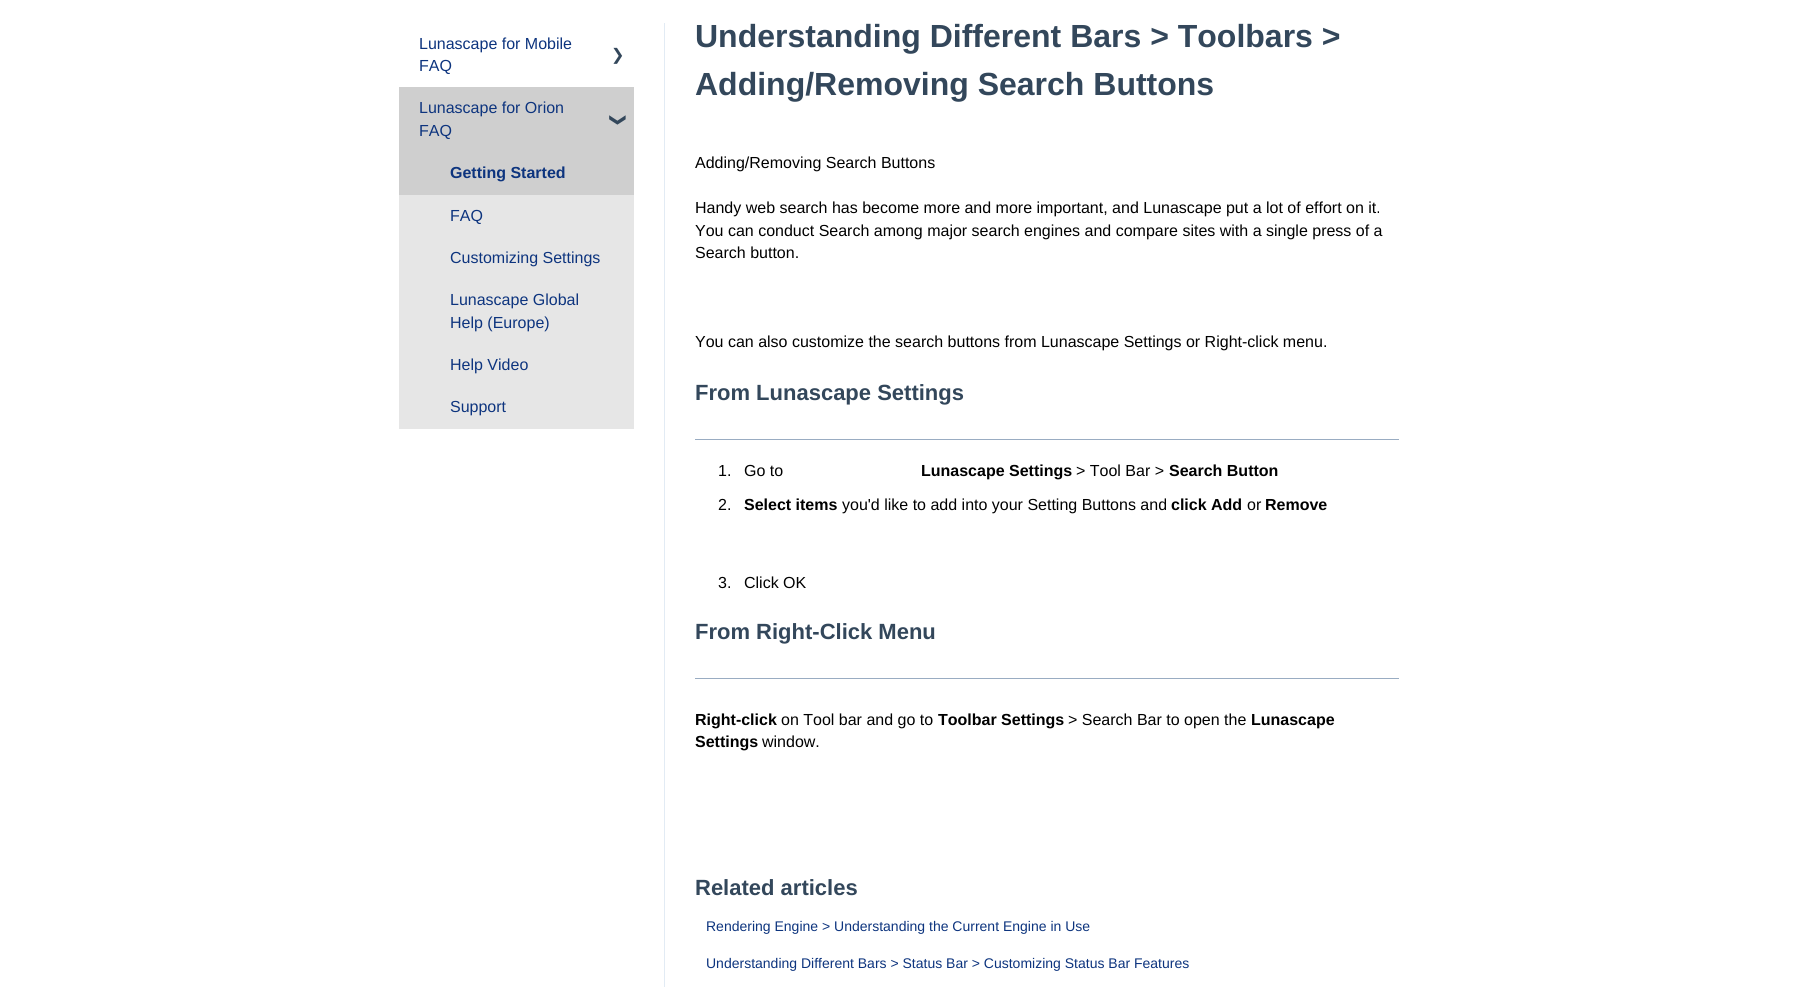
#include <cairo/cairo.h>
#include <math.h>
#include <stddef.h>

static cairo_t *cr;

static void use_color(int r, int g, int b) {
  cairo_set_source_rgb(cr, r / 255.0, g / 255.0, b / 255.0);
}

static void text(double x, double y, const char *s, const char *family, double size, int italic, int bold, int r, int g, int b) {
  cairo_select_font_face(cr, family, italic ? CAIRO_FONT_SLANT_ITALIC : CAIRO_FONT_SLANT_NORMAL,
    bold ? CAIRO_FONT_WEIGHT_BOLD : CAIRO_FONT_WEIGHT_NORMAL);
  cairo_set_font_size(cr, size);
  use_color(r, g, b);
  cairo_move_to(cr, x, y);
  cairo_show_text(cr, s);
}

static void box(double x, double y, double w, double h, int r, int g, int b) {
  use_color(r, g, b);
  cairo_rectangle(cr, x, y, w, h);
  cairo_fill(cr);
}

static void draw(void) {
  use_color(255, 255, 255);
  cairo_paint(cr);
  box(664, 23, 1, 964, 226, 235, 244);
  box(399, 195, 235, 234, 230, 230, 230);
  box(399, 87, 235, 108, 207, 207, 207);
  box(695, 439, 704, 1, 153, 172, 194);
  box(695, 678, 704, 1, 153, 172, 194);
  text(419, 49, "Lunascape for Mobile", "Liberation Sans", 16, 0, 0, 13, 52, 126);
  text(419, 71, "FAQ", "Liberation Sans", 16, 0, 0, 13, 52, 126);
  text(611, 60, "❯", "DejaVu Sans", 16, 0, 0, 51, 71, 91);
  text(419, 113, "Lunascape for Orion", "Liberation Sans", 16, 0, 0, 13, 52, 126);
  text(419, 136, "FAQ", "Liberation Sans", 16, 0, 0, 13, 52, 126);
  cairo_save(cr);
  cairo_translate(cr, 613, 113);
  cairo_rotate(cr, 90 * M_PI / 180);
  text(0, 0, "❯", "DejaVu Sans", 16, 0, 1, 51, 71, 91);
  cairo_restore(cr);
  text(450, 178, "Getting Started", "Liberation Sans", 16, 0, 1, 13, 52, 126);
  text(450, 221, "FAQ", "Liberation Sans", 16, 0, 0, 13, 52, 126);
  text(450, 263, "Customizing Settings", "Liberation Sans", 16, 0, 0, 13, 52, 126);
  text(450, 305, "Lunascape Global", "Liberation Sans", 16, 0, 0, 13, 52, 126);
  text(450, 328, "Help (Europe)", "Liberation Sans", 16, 0, 0, 13, 52, 126);
  text(450, 370, "Help Video", "Liberation Sans", 16, 0, 0, 13, 52, 126);
  text(450, 412, "Support", "Liberation Sans", 16, 0, 0, 13, 52, 126);
  text(695, 47, "Understanding Different Bars > Toolbars >", "Liberation Sans", 32, 0, 1, 51, 71, 91);
  text(695, 95, "Adding/Removing Search Buttons", "Liberation Sans", 32, 0, 1, 51, 71, 91);
  text(695, 168, "Adding/Removing Search Buttons", "Liberation Sans", 16, 0, 0, 0, 0, 0);
  text(695, 213, "Handy web search has become more and more important, and Lunascape put a lot of effort on it.", "Liberation Sans", 16, 0, 0, 0, 0, 0);
  text(695, 236, "You can conduct Search among major search engines and compare sites with a single press of a", "Liberation Sans", 16, 0, 0, 0, 0, 0);
  text(695, 258, "Search button.", "Liberation Sans", 16, 0, 0, 0, 0, 0);
  text(695, 347, "You can also customize the search buttons from Lunascape Settings or Right-click menu.", "Liberation Sans", 16, 0, 0, 0, 0, 0);
  text(695, 400, "From Lunascape Settings", "Liberation Sans", 22, 0, 1, 51, 71, 91);
  text(718, 476, "1.", "Liberation Sans", 16, 0, 0, 0, 0, 0);
  text(744, 476, "Go to", "Liberation Sans", 16, 0, 0, 0, 0, 0);
  text(921, 476, "Lunascape Settings", "Liberation Sans", 16, 0, 1, 0, 0, 0);
  text(1076, 476, "> Tool Bar >", "Liberation Sans", 16, 0, 0, 0, 0, 0);
  text(1169, 476, "Search Button", "Liberation Sans", 16, 0, 1, 0, 0, 0);
  text(718, 510, "2.", "Liberation Sans", 16, 0, 0, 0, 0, 0);
  text(744, 510, "Select items", "Liberation Sans", 16, 0, 1, 0, 0, 0);
  text(842, 510, "you'd like to add into your Setting Buttons and", "Liberation Sans", 16, 0, 0, 0, 0, 0);
  text(1171, 510, "click Add", "Liberation Sans", 16, 0, 1, 0, 0, 0);
  text(1247, 510, "or", "Liberation Sans", 16, 0, 0, 0, 0, 0);
  text(1265, 510, "Remove", "Liberation Sans", 16, 0, 1, 0, 0, 0);
  text(718, 588, "3.", "Liberation Sans", 16, 0, 0, 0, 0, 0);
  text(744, 588, "Click OK", "Liberation Sans", 16, 0, 0, 0, 0, 0);
  text(695, 639, "From Right-Click Menu", "Liberation Sans", 22, 0, 1, 51, 71, 91);
  text(695, 725, "Right-click", "Liberation Sans", 16, 0, 1, 0, 0, 0);
  text(781, 725, "on Tool bar and go to", "Liberation Sans", 16, 0, 0, 0, 0, 0);
  text(938, 725, "Toolbar Settings", "Liberation Sans", 16, 0, 1, 0, 0, 0);
  text(1068, 725, "> Search Bar to open the", "Liberation Sans", 16, 0, 0, 0, 0, 0);
  text(1251, 725, "Lunascape", "Liberation Sans", 16, 0, 1, 0, 0, 0);
  text(695, 747, "Settings", "Liberation Sans", 16, 0, 1, 0, 0, 0);
  text(762, 747, "window.", "Liberation Sans", 16, 0, 0, 0, 0, 0);
  text(695, 895, "Related articles", "Liberation Sans", 22, 0, 1, 51, 71, 91);
  text(706, 931, "Rendering Engine > Understanding the Current Engine in Use", "Liberation Sans", 14, 0, 0, 13, 52, 126);
  text(706, 968, "Understanding Different Bars > Status Bar > Customizing Status Bar Features", "Liberation Sans", 14, 0, 0, 13, 52, 126);
}

int main(void) {
  cairo_surface_t *surface = cairo_image_surface_create(CAIRO_FORMAT_RGB24, 1798, 987);
  cr = cairo_create(surface);
  cairo_font_options_t *options = cairo_font_options_create();
  cairo_font_options_set_hint_metrics(options, CAIRO_HINT_METRICS_OFF);
  cairo_font_options_set_hint_style(options, CAIRO_HINT_STYLE_NONE);
  cairo_set_font_options(cr, options);
  cairo_set_miter_limit(cr, 4);
  draw();
  cairo_surface_write_to_png(surface, "out.png");
  cairo_font_options_destroy(options);
  cairo_destroy(cr);
  cairo_surface_destroy(surface);
  return 0;
}
